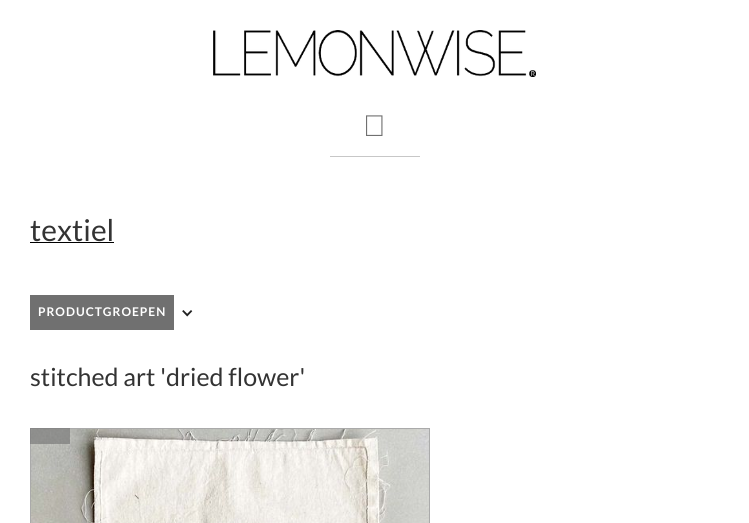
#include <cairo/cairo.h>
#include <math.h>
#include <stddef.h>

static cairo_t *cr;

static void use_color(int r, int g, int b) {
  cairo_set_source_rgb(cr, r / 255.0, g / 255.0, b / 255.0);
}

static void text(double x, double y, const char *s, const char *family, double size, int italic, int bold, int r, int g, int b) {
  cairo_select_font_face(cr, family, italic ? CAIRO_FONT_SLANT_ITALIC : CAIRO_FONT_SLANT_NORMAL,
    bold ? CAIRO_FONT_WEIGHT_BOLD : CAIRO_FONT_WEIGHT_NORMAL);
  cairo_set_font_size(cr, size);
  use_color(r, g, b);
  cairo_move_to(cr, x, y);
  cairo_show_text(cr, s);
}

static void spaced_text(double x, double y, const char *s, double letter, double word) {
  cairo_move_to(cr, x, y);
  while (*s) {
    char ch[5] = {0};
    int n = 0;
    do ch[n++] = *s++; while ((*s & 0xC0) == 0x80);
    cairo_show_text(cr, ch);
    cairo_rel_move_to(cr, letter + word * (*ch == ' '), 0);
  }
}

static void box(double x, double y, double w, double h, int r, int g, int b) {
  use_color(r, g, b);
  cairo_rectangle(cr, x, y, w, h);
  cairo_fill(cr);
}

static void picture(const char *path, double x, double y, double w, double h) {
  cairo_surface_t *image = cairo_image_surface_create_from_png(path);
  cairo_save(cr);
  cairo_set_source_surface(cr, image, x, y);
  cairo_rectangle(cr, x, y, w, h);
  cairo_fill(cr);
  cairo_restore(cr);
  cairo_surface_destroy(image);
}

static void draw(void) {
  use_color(255, 255, 255);
  cairo_paint(cr);
  picture("img_01.png", 213, 30, 323, 47);
  picture("img_02.png", 366, 115, 17, 21);
  box(330, 156, 90, 1, 199, 199, 199);
  box(30, 242, 84, 1, 0, 0, 0);
  box(30, 295, 144, 35, 112, 112, 112);
  picture("img_03.png", 182, 310, 11, 7);
  cairo_rectangle(cr, 30.5, 428.5, 399, 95);
  use_color(170, 170, 170);
  cairo_set_line_width(cr, 1);
  cairo_stroke(cr);
  picture("img_04.png", 31, 429, 398, 94);
  cairo_set_source_rgba(cr, 0.439, 0.439, 0.439, 0.6);
  cairo_rectangle(cr, 30, 428, 40, 16);
  cairo_fill(cr);
  text(30, 241, "textiel", "Lato", 30, 0, 0, 51, 51, 51);
  cairo_select_font_face(cr, "Lato", CAIRO_FONT_SLANT_NORMAL, CAIRO_FONT_WEIGHT_BOLD);
  cairo_set_font_size(cr, 12);
  use_color(255, 255, 255);
  spaced_text(38, 316, "PRODUCTGROEPEN", 1, 0);
  text(30, 386, "stitched art 'dried flower'", "Lato", 25, 0, 0, 51, 51, 51);
}

int main(void) {
  cairo_surface_t *surface = cairo_image_surface_create(CAIRO_FORMAT_RGB24, 749, 523);
  cr = cairo_create(surface);
  cairo_font_options_t *options = cairo_font_options_create();
  cairo_font_options_set_hint_metrics(options, CAIRO_HINT_METRICS_OFF);
  cairo_font_options_set_hint_style(options, CAIRO_HINT_STYLE_NONE);
  cairo_set_font_options(cr, options);
  cairo_set_miter_limit(cr, 4);
  draw();
  cairo_surface_write_to_png(surface, "out.png");
  cairo_font_options_destroy(options);
  cairo_destroy(cr);
  cairo_surface_destroy(surface);
  return 0;
}
